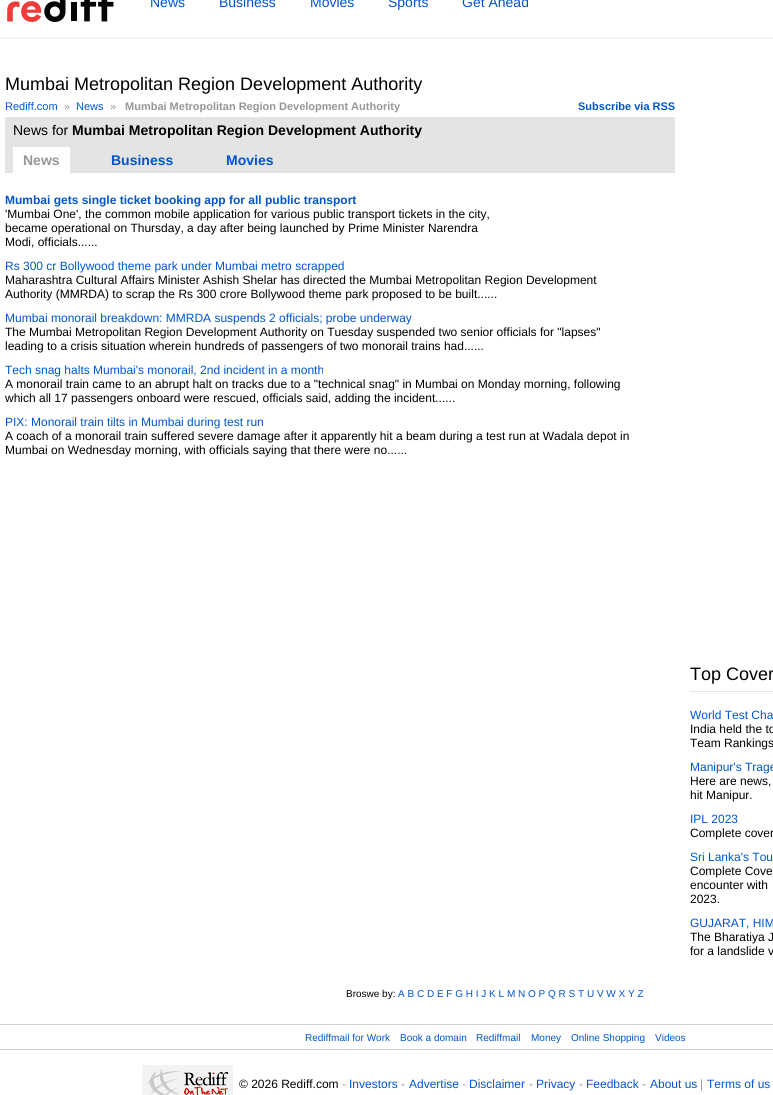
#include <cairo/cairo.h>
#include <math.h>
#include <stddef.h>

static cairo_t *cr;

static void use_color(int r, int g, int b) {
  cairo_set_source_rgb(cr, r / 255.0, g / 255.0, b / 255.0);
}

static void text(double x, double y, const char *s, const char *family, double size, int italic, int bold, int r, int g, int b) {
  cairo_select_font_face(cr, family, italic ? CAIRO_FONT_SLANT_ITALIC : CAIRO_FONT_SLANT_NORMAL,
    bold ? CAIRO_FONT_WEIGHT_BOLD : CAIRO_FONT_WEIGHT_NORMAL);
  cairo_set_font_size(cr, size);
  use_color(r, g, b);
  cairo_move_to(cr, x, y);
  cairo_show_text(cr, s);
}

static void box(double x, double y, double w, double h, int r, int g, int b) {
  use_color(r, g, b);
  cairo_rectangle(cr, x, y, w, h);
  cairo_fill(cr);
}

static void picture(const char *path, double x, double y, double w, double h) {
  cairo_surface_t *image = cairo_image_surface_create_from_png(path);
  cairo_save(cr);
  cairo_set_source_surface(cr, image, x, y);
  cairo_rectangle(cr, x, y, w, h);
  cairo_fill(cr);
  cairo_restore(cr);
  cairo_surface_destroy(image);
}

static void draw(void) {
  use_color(255, 255, 255);
  cairo_paint(cr);
  picture("img_01.png", 7, 0, 107, 22);
  box(0, 37, 773, 2, 243, 243, 243);
  box(5, 117, 670, 56, 228, 228, 228);
  box(13, 147, 57, 26, 255, 255, 255);
  box(690, 691, 83, 1, 229, 229, 229);
  box(0, 1024, 773, 1, 209, 209, 209);
  box(0, 1049, 773, 1, 209, 209, 209);
  picture("img_02.png", 142, 1065, 91, 30);
  text(150, 7, "News", "Liberation Sans", 14, 0, 0, 0, 85, 204);
  text(219, 7, "Business", "Liberation Sans", 14, 0, 0, 0, 85, 204);
  text(310, 7, "Movies", "Liberation Sans", 14, 0, 0, 0, 85, 204);
  text(388, 7, "Sports", "Liberation Sans", 14, 0, 0, 0, 85, 204);
  text(462, 7, "Get Ahead", "Liberation Sans", 14, 0, 0, 0, 85, 204);
  text(5, 90, "Mumbai Metropolitan Region Development Authority", "Liberation Sans", 18, 0, 0, 0, 0, 0);
  text(5, 110, "Rediff.com", "Liberation Sans", 11, 0, 0, 0, 85, 204);
  text(64, 110, "»", "Liberation Sans", 11, 0, 0, 150, 150, 150);
  text(76, 110, "News", "Liberation Sans", 11, 0, 0, 0, 85, 204);
  text(110, 110, "»", "Liberation Sans", 11, 0, 0, 150, 150, 150);
  text(125, 110, "Mumbai Metropolitan Region Development Authority", "Liberation Sans", 11, 0, 1, 150, 150, 150);
  text(578, 110, "Subscribe via RSS", "Liberation Sans", 11, 0, 1, 0, 85, 204);
  text(13, 135, "News for", "Liberation Sans", 14, 0, 0, 0, 0, 0);
  text(72, 135, "Mumbai Metropolitan Region Development Authority", "Liberation Sans", 14, 0, 1, 0, 0, 0);
  text(23, 165, "News", "Liberation Sans", 14, 0, 1, 150, 150, 150);
  text(111, 165, "Business", "Liberation Sans", 14, 0, 1, 0, 85, 204);
  text(226, 165, "Movies", "Liberation Sans", 14, 0, 1, 0, 85, 204);
  text(5, 204, "Mumbai gets single ticket booking app for all public transport", "Liberation Sans", 12, 0, 1, 0, 85, 204);
  text(5, 218, "'Mumbai One', the common mobile application for various public transport tickets in the city,", "Liberation Sans", 12, 0, 0, 0, 0, 0);
  text(5, 232, "became operational on Thursday, a day after being launched by Prime Minister Narendra", "Liberation Sans", 12, 0, 0, 0, 0, 0);
  text(5, 246, "Modi, officials......", "Liberation Sans", 12, 0, 0, 0, 0, 0);
  text(5, 270, "Rs 300 cr Bollywood theme park under Mumbai metro scrapped", "Liberation Sans", 12, 0, 0, 0, 85, 204);
  text(5, 284, "Maharashtra Cultural Affairs Minister Ashish Shelar has directed the Mumbai Metropolitan Region Development", "Liberation Sans", 12, 0, 0, 0, 0, 0);
  text(5, 298, "Authority (MMRDA) to scrap the Rs 300 crore Bollywood theme park proposed to be built......", "Liberation Sans", 12, 0, 0, 0, 0, 0);
  text(5, 322, "Mumbai monorail breakdown: MMRDA suspends 2 officials; probe underway", "Liberation Sans", 12, 0, 0, 0, 85, 204);
  text(5, 336, "The Mumbai Metropolitan Region Development Authority on Tuesday suspended two senior officials for \"lapses\"", "Liberation Sans", 12, 0, 0, 0, 0, 0);
  text(5, 350, "leading to a crisis situation wherein hundreds of passengers of two monorail trains had......", "Liberation Sans", 12, 0, 0, 0, 0, 0);
  text(5, 374, "Tech snag halts Mumbai's monorail, 2nd incident in a month", "Liberation Sans", 12, 0, 0, 0, 85, 204);
  text(5, 388, "A monorail train came to an abrupt halt on tracks due to a \"technical snag\" in Mumbai on Monday morning, following", "Liberation Sans", 12, 0, 0, 0, 0, 0);
  text(5, 402, "which all 17 passengers onboard were rescued, officials said, adding the incident......", "Liberation Sans", 12, 0, 0, 0, 0, 0);
  text(5, 426, "PIX: Monorail train tilts in Mumbai during test run", "Liberation Sans", 12, 0, 0, 0, 85, 204);
  text(5, 440, "A coach of a monorail train suffered severe damage after it apparently hit a beam during a test run at Wadala depot in", "Liberation Sans", 12, 0, 0, 0, 0, 0);
  text(5, 454, "Mumbai on Wednesday morning, with officials saying that there were no......", "Liberation Sans", 12, 0, 0, 0, 0, 0);
  text(690, 680, "Top Cover", "Liberation Sans", 18, 0, 0, 0, 0, 0);
  text(690, 719, "World Test Cha", "Liberation Sans", 12, 0, 0, 0, 85, 204);
  text(690, 733, "India held the to", "Liberation Sans", 12, 0, 0, 0, 0, 0);
  text(690, 747, "Team Rankings", "Liberation Sans", 12, 0, 0, 0, 0, 0);
  text(690, 771, "Manipur's Trage", "Liberation Sans", 12, 0, 0, 0, 85, 204);
  text(690, 785, "Here are news,", "Liberation Sans", 12, 0, 0, 0, 0, 0);
  text(690, 799, "hit Manipur.", "Liberation Sans", 12, 0, 0, 0, 0, 0);
  text(690, 823, "IPL 2023", "Liberation Sans", 12, 0, 0, 0, 85, 204);
  text(690, 837, "Complete cover", "Liberation Sans", 12, 0, 0, 0, 0, 0);
  text(690, 861, "Sri Lanka's Tou", "Liberation Sans", 12, 0, 0, 0, 85, 204);
  text(690, 875, "Complete Cove", "Liberation Sans", 12, 0, 0, 0, 0, 0);
  text(690, 889, "encounter with", "Liberation Sans", 12, 0, 0, 0, 0, 0);
  text(690, 903, "2023.", "Liberation Sans", 12, 0, 0, 0, 0, 0);
  text(690, 927, "GUJARAT, HIM", "Liberation Sans", 12, 0, 0, 0, 85, 204);
  text(690, 941, "The Bharatiya J", "Liberation Sans", 12, 0, 0, 0, 0, 0);
  text(690, 955, "for a landslide v", "Liberation Sans", 12, 0, 0, 0, 0, 0);
  text(346, 997, "Broswe by:", "Liberation Sans", 10, 0, 0, 0, 0, 0);
  text(398, 997, "A B C D E F G H I J K L M N O P Q R S T U V W X Y Z", "Liberation Sans", 10, 0, 0, 0, 85, 204);
  text(305, 1041, "Rediffmail for Work", "Liberation Sans", 10, 0, 0, 0, 85, 204);
  text(400, 1041, "Book a domain", "Liberation Sans", 10, 0, 0, 0, 85, 204);
  text(476, 1041, "Rediffmail", "Liberation Sans", 10, 0, 0, 0, 85, 204);
  text(531, 1041, "Money", "Liberation Sans", 10, 0, 0, 0, 85, 204);
  text(571, 1041, "Online Shopping", "Liberation Sans", 10, 0, 0, 0, 85, 204);
  text(655, 1041, "Videos", "Liberation Sans", 10, 0, 0, 0, 85, 204);
  text(239, 1088, "© 2026 Rediff.com", "Liberation Sans", 12, 0, 0, 0, 0, 0);
  text(342, 1088, "-", "Liberation Sans", 12, 0, 0, 150, 150, 150);
  text(349, 1088, "Investors", "Liberation Sans", 12, 0, 0, 0, 85, 204);
  text(401, 1088, "-", "Liberation Sans", 12, 0, 0, 150, 150, 150);
  text(409, 1088, "Advertise", "Liberation Sans", 12, 0, 0, 0, 85, 204);
  text(462, 1088, "-", "Liberation Sans", 12, 0, 0, 150, 150, 150);
  text(469, 1088, "Disclaimer", "Liberation Sans", 12, 0, 0, 0, 85, 204);
  text(529, 1088, "-", "Liberation Sans", 12, 0, 0, 150, 150, 150);
  text(536, 1088, "Privacy", "Liberation Sans", 12, 0, 0, 0, 85, 204);
  text(579, 1088, "-", "Liberation Sans", 12, 0, 0, 150, 150, 150);
  text(586, 1088, "Feedback", "Liberation Sans", 12, 0, 0, 0, 85, 204);
  text(642, 1088, "-", "Liberation Sans", 12, 0, 0, 150, 150, 150);
  text(650, 1088, "About us", "Liberation Sans", 12, 0, 0, 0, 85, 204);
  text(700, 1088, "|", "Liberation Sans", 12, 0, 0, 150, 150, 150);
  text(707, 1088, "Terms of us", "Liberation Sans", 12, 0, 0, 0, 85, 204);
}

int main(void) {
  cairo_surface_t *surface = cairo_image_surface_create(CAIRO_FORMAT_RGB24, 773, 1095);
  cr = cairo_create(surface);
  cairo_font_options_t *options = cairo_font_options_create();
  cairo_font_options_set_hint_metrics(options, CAIRO_HINT_METRICS_OFF);
  cairo_font_options_set_hint_style(options, CAIRO_HINT_STYLE_NONE);
  cairo_set_font_options(cr, options);
  cairo_set_miter_limit(cr, 4);
  draw();
  cairo_surface_write_to_png(surface, "out.png");
  cairo_font_options_destroy(options);
  cairo_destroy(cr);
  cairo_surface_destroy(surface);
  return 0;
}
